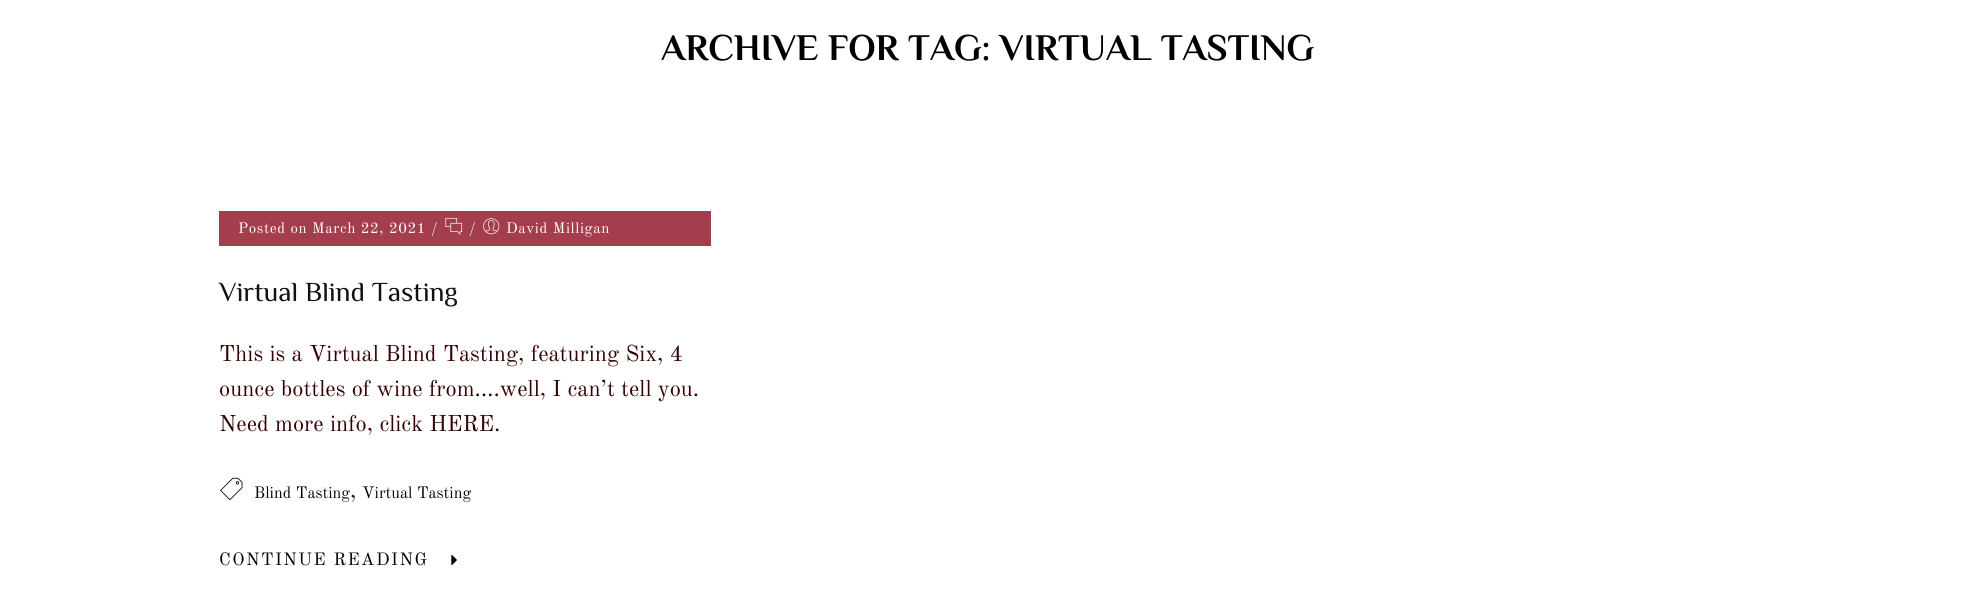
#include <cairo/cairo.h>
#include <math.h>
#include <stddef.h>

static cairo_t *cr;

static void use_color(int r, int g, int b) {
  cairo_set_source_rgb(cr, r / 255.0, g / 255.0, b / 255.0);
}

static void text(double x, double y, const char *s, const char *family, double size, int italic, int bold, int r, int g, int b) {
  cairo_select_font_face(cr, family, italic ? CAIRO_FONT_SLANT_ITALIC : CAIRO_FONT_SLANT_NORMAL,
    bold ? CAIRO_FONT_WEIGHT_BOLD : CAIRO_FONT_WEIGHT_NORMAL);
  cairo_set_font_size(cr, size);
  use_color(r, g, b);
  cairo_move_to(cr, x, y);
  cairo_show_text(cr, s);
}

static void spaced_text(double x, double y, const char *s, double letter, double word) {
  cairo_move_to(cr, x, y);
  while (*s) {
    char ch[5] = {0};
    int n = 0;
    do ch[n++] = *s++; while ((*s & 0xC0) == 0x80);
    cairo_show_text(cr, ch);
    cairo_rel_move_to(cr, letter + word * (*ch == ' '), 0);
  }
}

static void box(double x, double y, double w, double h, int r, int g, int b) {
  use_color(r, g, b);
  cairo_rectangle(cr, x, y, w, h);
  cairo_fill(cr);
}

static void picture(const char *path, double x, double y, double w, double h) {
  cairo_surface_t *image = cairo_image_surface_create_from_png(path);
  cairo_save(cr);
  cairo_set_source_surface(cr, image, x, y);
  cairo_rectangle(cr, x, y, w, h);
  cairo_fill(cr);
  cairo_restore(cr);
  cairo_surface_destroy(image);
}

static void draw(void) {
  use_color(255, 255, 255);
  cairo_paint(cr);
  box(219, 211, 492, 35, 165, 62, 76);
  picture("img_01.png", 445, 217, 18, 18);
  picture("img_02.png", 483, 218, 17, 17);
  picture("img_03.png", 220, 477, 23, 24);
  picture("img_04.png", 451, 555, 6, 10);
  text(661, 60, "ARCHIVE FOR TAG: VIRTUAL TASTING", "Philosopher", 37.5, 0, 1, 0, 0, 0);
  cairo_select_font_face(cr, "Old Standard TT", CAIRO_FONT_SLANT_NORMAL, CAIRO_FONT_WEIGHT_NORMAL);
  cairo_set_font_size(cr, 15);
  use_color(255, 255, 255);
  spaced_text(238, 233, "Posted on March 22, 2021 /", 0.6, 0);
  spaced_text(469, 233, "/", 0.6, 0);
  spaced_text(506, 233, "David Milligan", 0.6, 0);
  text(219, 301, "Virtual Blind Tasting", "Philosopher", 27.5, 0, 0, 17, 17, 17);
  text(219, 361, "This is a Virtual Blind Tasting, featuring Six, 4", "Old Standard TT", 22.5, 0, 0, 51, 0, 0);
  text(219, 396, "ounce bottles of wine from….well, I can’t tell you.", "Old Standard TT", 22.5, 0, 0, 51, 0, 0);
  text(219, 431, "Need more info, click HERE.", "Old Standard TT", 22.5, 0, 0, 51, 0, 0);
  text(254, 498, "Blind Tasting", "Old Standard TT", 16.25, 0, 0, 0, 0, 0);
  text(350, 498, ",", "Old Standard TT", 22.5, 0, 0, 51, 0, 0);
  text(362, 498, "Virtual Tasting", "Old Standard TT", 16.25, 0, 0, 0, 0, 0);
  cairo_set_font_size(cr, 17.5);
  spaced_text(219, 565, "CONTINUE READING", 1.5, 0);
}

int main(void) {
  cairo_surface_t *surface = cairo_image_surface_create(CAIRO_FORMAT_RGB24, 1974, 609);
  cr = cairo_create(surface);
  cairo_font_options_t *options = cairo_font_options_create();
  cairo_font_options_set_hint_metrics(options, CAIRO_HINT_METRICS_OFF);
  cairo_font_options_set_hint_style(options, CAIRO_HINT_STYLE_NONE);
  cairo_set_font_options(cr, options);
  cairo_set_miter_limit(cr, 4);
  draw();
  cairo_surface_write_to_png(surface, "out.png");
  cairo_font_options_destroy(options);
  cairo_destroy(cr);
  cairo_surface_destroy(surface);
  return 0;
}
